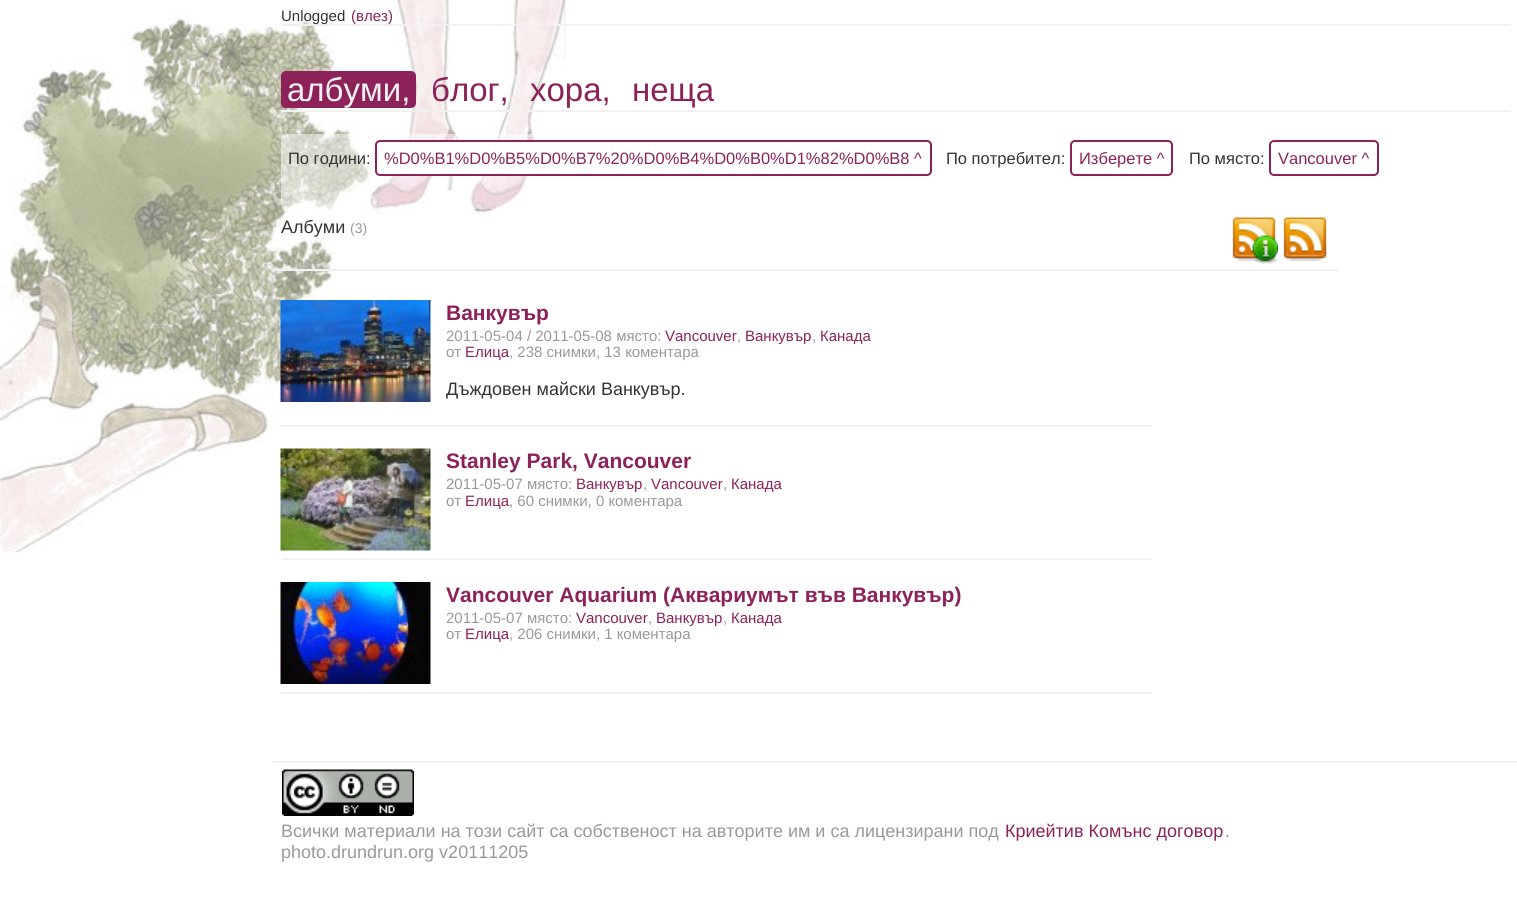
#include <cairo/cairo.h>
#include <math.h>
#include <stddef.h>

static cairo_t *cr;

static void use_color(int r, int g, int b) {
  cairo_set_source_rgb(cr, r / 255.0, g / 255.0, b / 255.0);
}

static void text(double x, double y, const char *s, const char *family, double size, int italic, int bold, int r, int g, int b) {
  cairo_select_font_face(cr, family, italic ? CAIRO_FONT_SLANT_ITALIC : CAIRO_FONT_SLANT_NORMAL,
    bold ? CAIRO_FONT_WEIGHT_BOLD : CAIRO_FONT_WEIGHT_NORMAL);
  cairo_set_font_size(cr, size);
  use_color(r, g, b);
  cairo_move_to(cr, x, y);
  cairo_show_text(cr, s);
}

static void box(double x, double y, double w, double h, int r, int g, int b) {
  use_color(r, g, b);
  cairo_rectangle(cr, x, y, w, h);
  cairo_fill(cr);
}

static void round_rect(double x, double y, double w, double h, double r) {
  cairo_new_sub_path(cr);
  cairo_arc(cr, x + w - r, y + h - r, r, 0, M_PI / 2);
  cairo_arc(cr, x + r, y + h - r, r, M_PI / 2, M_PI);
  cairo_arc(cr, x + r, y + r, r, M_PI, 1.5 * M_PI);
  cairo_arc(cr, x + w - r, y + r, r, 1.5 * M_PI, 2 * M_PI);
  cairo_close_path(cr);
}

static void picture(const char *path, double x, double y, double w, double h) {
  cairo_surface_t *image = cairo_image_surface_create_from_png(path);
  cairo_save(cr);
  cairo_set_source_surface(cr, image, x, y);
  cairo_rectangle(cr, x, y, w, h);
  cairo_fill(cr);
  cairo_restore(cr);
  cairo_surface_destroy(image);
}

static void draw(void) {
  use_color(255, 255, 255);
  cairo_paint(cr);
  picture("img_01.png", 0, 0, 566, 553);
  box(281, 24, 1230, 2, 241, 241, 241);
  box(281, 110, 1230, 2, 241, 241, 241);
  use_color(140, 34, 89);
  round_rect(281, 71, 135, 37, 5);
  cairo_fill(cr);
  cairo_set_source_rgba(cr, 1, 1, 1, 0.5);
  round_rect(281, 134, 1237, 75, 5);
  cairo_fill(cr);
  use_color(255, 255, 255);
  round_rect(376, 141, 555, 34, 4);
  cairo_fill_preserve(cr);
  use_color(140, 34, 89);
  cairo_stroke(cr);
  round_rect(1071, 141, 101, 34, 4);
  cairo_stroke(cr);
  round_rect(1270, 141, 108, 34, 4);
  cairo_stroke(cr);
  box(273, 269, 1065, 2, 241, 241, 241);
  picture("img_02.png", 1232, 217, 46, 47);
  picture("img_03.png", 1283, 217, 44, 45);
  box(281, 425, 871, 2, 241, 241, 241);
  picture("img_04.png", 280, 300, 151, 102);
  box(281, 558, 871, 2, 241, 241, 241);
  picture("img_05.png", 280, 448, 151, 103);
  box(281, 692, 871, 2, 241, 241, 241);
  picture("img_06.png", 280, 582, 151, 102);
  box(273, 761, 1244, 2, 241, 241, 241);
  picture("img_07.png", 282, 769, 132, 47);
  text(281, 21, "Unlogged", "Liberation Sans", 15, 0, 0, 51, 51, 51);
  text(351, 21, "(влез)", "Liberation Sans", 15, 0, 0, 140, 34, 89);
  text(287, 101, "албуми,", "Liberation Sans", 33, 0, 0, 241, 241, 241);
  text(431, 101, "блог,", "Liberation Sans", 33, 0, 0, 140, 34, 89);
  text(530, 101, "хора,", "Liberation Sans", 33, 0, 0, 140, 34, 89);
  text(632, 101, "неща", "Liberation Sans", 33, 0, 0, 140, 34, 89);
  text(288, 164, "По години:", "Liberation Sans", 16.5, 0, 0, 51, 51, 51);
  text(384, 164, "%D0%B1%D0%B5%D0%B7%20%D0%B4%D0%B0%D1%82%D0%B8 ^", "Liberation Sans", 16.5, 0, 0, 140, 34, 89);
  text(946, 164, "По потребител:", "Liberation Sans", 16.5, 0, 0, 51, 51, 51);
  text(1079, 164, "Изберете ^", "Liberation Sans", 16.5, 0, 0, 140, 34, 89);
  text(1189, 164, "По място:", "Liberation Sans", 16.5, 0, 0, 51, 51, 51);
  text(1278, 164, "Vancouver ^", "Liberation Sans", 16.5, 0, 0, 140, 34, 89);
  text(281, 233, "Албуми", "Liberation Sans", 18, 0, 0, 51, 51, 51);
  text(350, 233, "(3)", "Liberation Sans", 14, 0, 0, 153, 153, 153);
  text(446, 320, "Ванкувър", "Liberation Sans", 21, 0, 1, 140, 34, 89);
  text(446, 341, "2011-05-04 / 2011-05-08 място:", "Liberation Sans", 15, 0, 0, 153, 153, 153);
  text(665, 341, "Vancouver", "Liberation Sans", 15, 0, 0, 140, 34, 89);
  text(737, 341, ",", "Liberation Sans", 15, 0, 0, 153, 153, 153);
  text(745, 341, "Ванкувър", "Liberation Sans", 15, 0, 0, 140, 34, 89);
  text(812, 341, ",", "Liberation Sans", 15, 0, 0, 153, 153, 153);
  text(820, 341, "Канада", "Liberation Sans", 15, 0, 0, 140, 34, 89);
  text(446, 357, "от", "Liberation Sans", 15, 0, 0, 153, 153, 153);
  text(465, 357, "Елица", "Liberation Sans", 15, 0, 0, 140, 34, 89);
  text(509, 357, ", 238 снимки, 13 коментара", "Liberation Sans", 15, 0, 0, 153, 153, 153);
  text(446, 395, "Дъждовен майски Ванкувър.", "Liberation Sans", 18, 0, 0, 51, 51, 51);
  text(446, 468, "Stanley Park, Vancouver", "Liberation Sans", 21, 0, 1, 140, 34, 89);
  text(446, 489, "2011-05-07 място:", "Liberation Sans", 15, 0, 0, 153, 153, 153);
  text(576, 489, "Ванкувър", "Liberation Sans", 15, 0, 0, 140, 34, 89);
  text(643, 489, ",", "Liberation Sans", 15, 0, 0, 153, 153, 153);
  text(651, 489, "Vancouver", "Liberation Sans", 15, 0, 0, 140, 34, 89);
  text(723, 489, ",", "Liberation Sans", 15, 0, 0, 153, 153, 153);
  text(731, 489, "Канада", "Liberation Sans", 15, 0, 0, 140, 34, 89);
  text(446, 506, "от", "Liberation Sans", 15, 0, 0, 153, 153, 153);
  text(465, 506, "Елица", "Liberation Sans", 15, 0, 0, 140, 34, 89);
  text(509, 506, ", 60 снимки, 0 коментара", "Liberation Sans", 15, 0, 0, 153, 153, 153);
  text(446, 602, "Vancouver Aquarium (Аквариумът във Ванкувър)", "Liberation Sans", 21, 0, 1, 140, 34, 89);
  text(446, 623, "2011-05-07 място:", "Liberation Sans", 15, 0, 0, 153, 153, 153);
  text(576, 623, "Vancouver", "Liberation Sans", 15, 0, 0, 140, 34, 89);
  text(648, 623, ",", "Liberation Sans", 15, 0, 0, 153, 153, 153);
  text(656, 623, "Ванкувър", "Liberation Sans", 15, 0, 0, 140, 34, 89);
  text(723, 623, ",", "Liberation Sans", 15, 0, 0, 153, 153, 153);
  text(731, 623, "Канада", "Liberation Sans", 15, 0, 0, 140, 34, 89);
  text(446, 639, "от", "Liberation Sans", 15, 0, 0, 153, 153, 153);
  text(465, 639, "Елица", "Liberation Sans", 15, 0, 0, 140, 34, 89);
  text(509, 639, ", 206 снимки, 1 коментара", "Liberation Sans", 15, 0, 0, 153, 153, 153);
  text(281, 837, "Всички материали на този сайт са собственост на авторите им и са лицензирани под", "Liberation Sans", 18, 0, 0, 153, 153, 153);
  text(1005, 837, "Криейтив Комънс договор", "Liberation Sans", 18, 0, 0, 140, 34, 89);
  text(1225, 837, ".", "Liberation Sans", 18, 0, 0, 153, 153, 153);
  text(281, 858, "photo.drundrun.org v20111205", "Liberation Sans", 18, 0, 0, 153, 153, 153);
}

int main(void) {
  cairo_surface_t *surface = cairo_image_surface_create(CAIRO_FORMAT_RGB24, 1517, 905);
  cr = cairo_create(surface);
  cairo_font_options_t *options = cairo_font_options_create();
  cairo_font_options_set_hint_metrics(options, CAIRO_HINT_METRICS_OFF);
  cairo_font_options_set_hint_style(options, CAIRO_HINT_STYLE_NONE);
  cairo_set_font_options(cr, options);
  cairo_set_miter_limit(cr, 4);
  draw();
  cairo_surface_write_to_png(surface, "out.png");
  cairo_font_options_destroy(options);
  cairo_destroy(cr);
  cairo_surface_destroy(surface);
  return 0;
}
